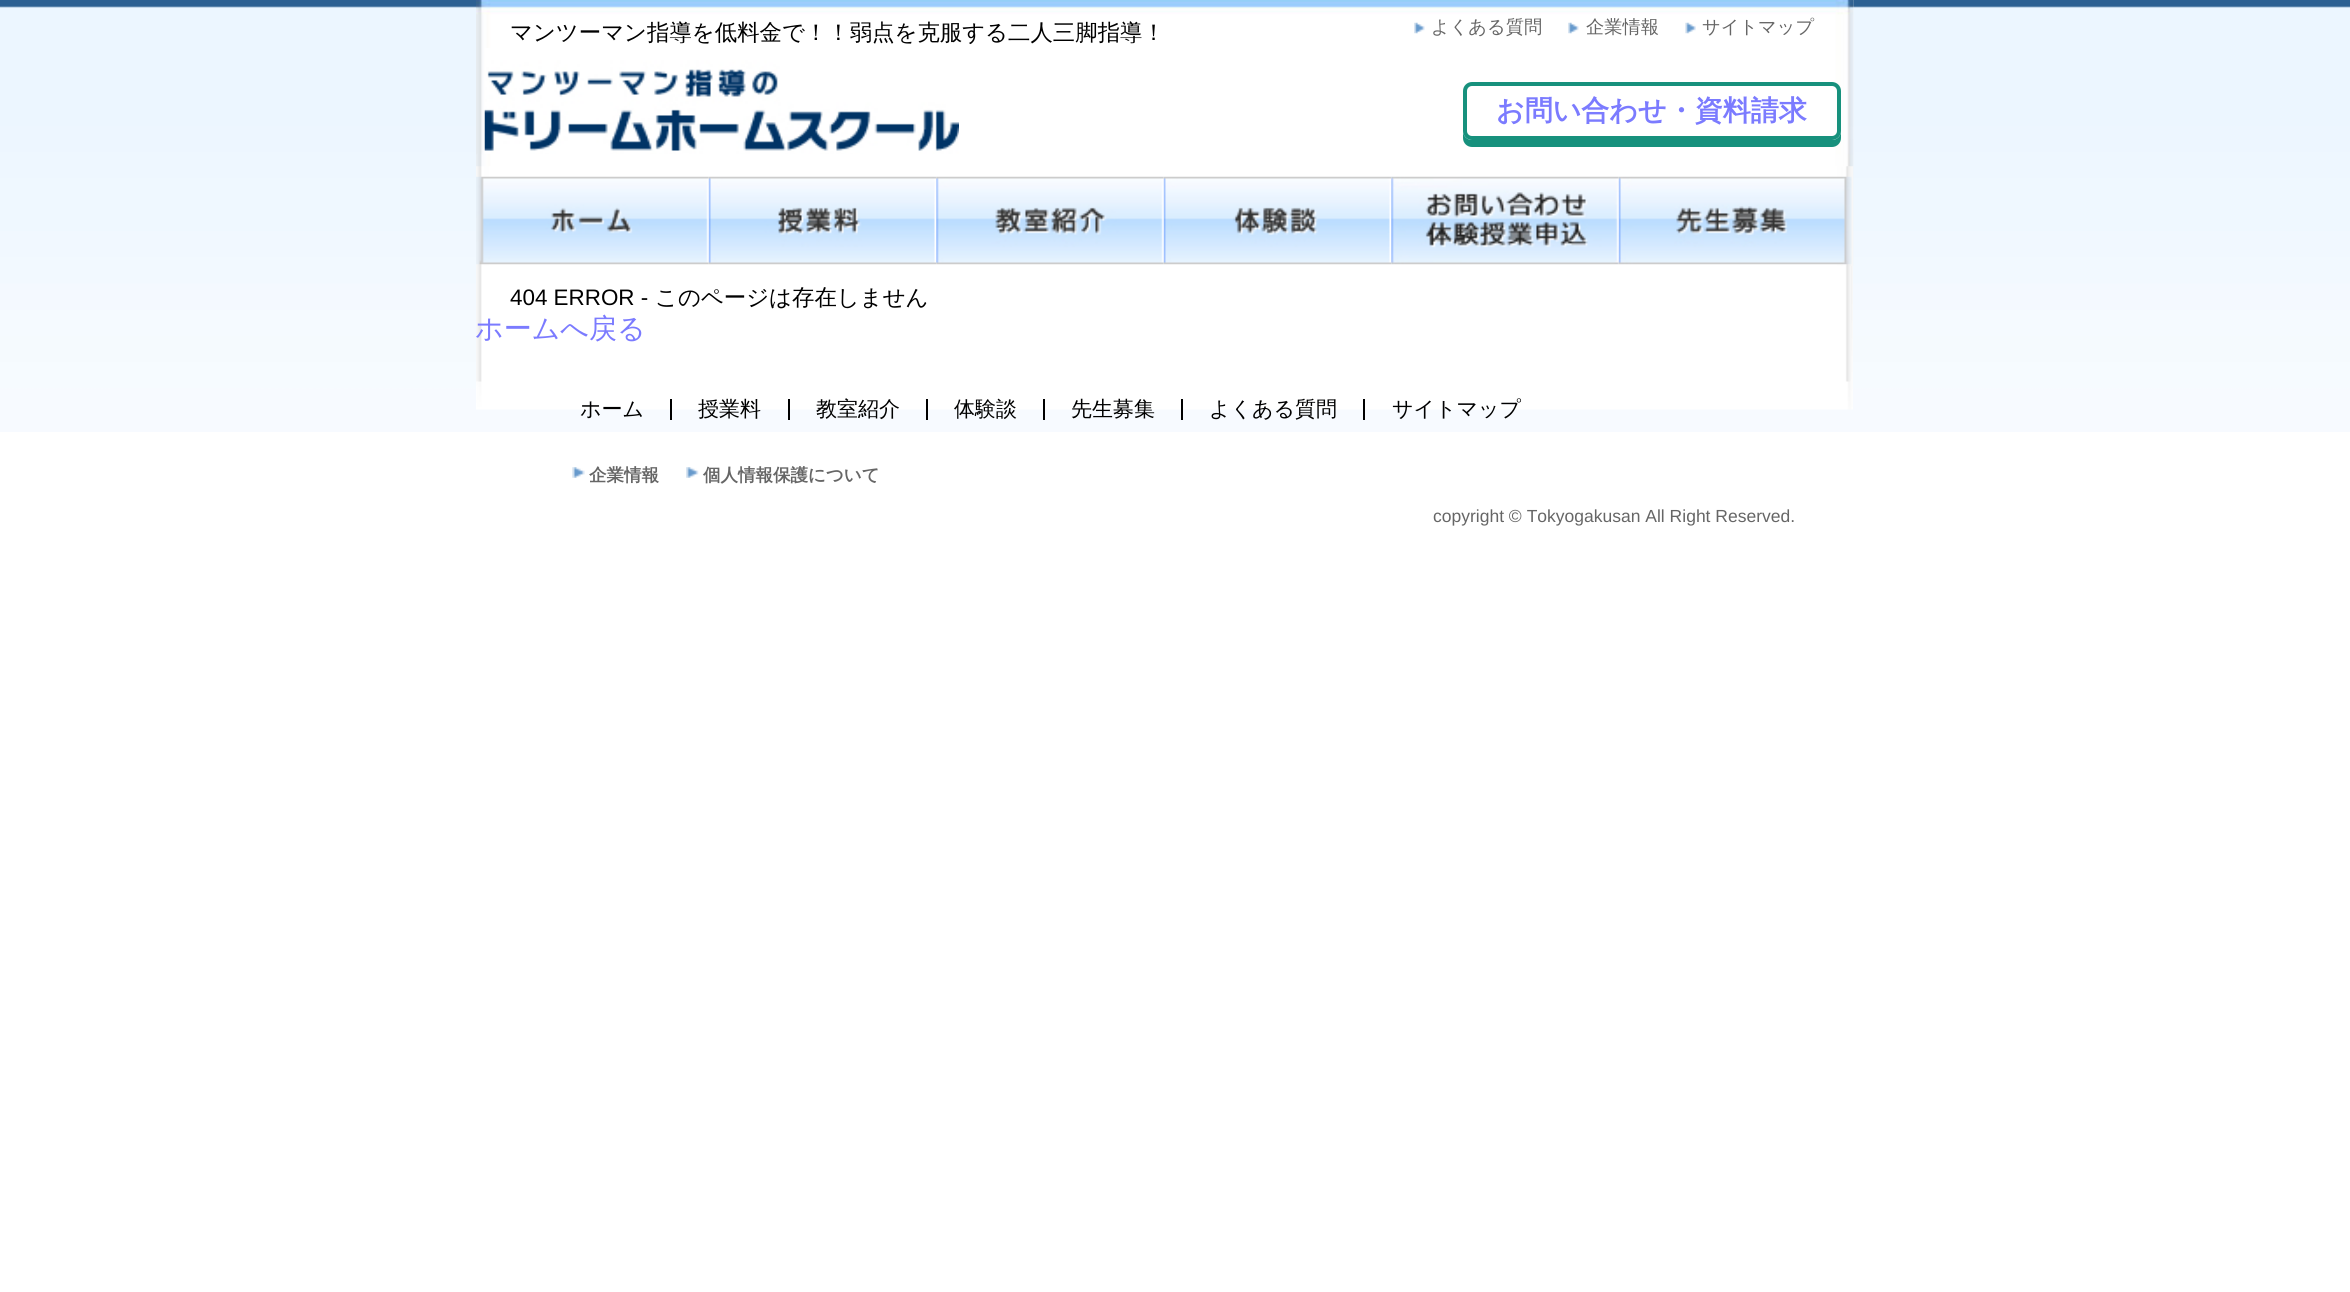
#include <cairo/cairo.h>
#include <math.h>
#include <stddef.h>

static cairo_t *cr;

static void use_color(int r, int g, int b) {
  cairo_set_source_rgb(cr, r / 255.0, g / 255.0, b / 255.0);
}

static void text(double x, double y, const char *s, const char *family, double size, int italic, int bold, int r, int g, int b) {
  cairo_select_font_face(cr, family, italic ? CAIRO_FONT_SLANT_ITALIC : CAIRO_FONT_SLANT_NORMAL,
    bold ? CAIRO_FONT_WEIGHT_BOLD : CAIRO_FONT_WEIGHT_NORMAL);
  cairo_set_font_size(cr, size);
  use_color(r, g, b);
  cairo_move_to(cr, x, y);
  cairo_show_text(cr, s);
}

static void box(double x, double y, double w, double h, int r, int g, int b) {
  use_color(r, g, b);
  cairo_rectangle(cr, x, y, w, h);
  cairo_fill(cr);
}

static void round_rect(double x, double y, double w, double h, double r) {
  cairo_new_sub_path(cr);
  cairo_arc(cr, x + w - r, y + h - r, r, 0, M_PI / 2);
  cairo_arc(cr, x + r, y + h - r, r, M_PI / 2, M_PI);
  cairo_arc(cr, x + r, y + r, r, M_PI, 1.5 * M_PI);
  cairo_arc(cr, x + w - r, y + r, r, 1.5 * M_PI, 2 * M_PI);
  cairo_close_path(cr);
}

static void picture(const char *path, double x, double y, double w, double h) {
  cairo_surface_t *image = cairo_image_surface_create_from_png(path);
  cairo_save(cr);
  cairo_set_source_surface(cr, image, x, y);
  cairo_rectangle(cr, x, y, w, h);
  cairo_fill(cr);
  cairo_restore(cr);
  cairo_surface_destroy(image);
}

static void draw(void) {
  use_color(255, 255, 255);
  cairo_paint(cr);
  picture("img_01.png", 0, 0, 2350, 432);
  picture("img_02.png", 476, 0, 1378, 266);
  picture("img_03.png", 476, 0, 1378, 167);
  picture("img_04.png", 1414, 22, 11, 12);
  picture("img_04.png", 1568, 22, 11, 12);
  picture("img_05.png", 1685, 22, 11, 12);
  picture("img_06.png", 476, 176, 233, 89);
  picture("img_07.png", 708, 176, 229, 89);
  picture("img_08.png", 936, 176, 228, 89);
  picture("img_09.png", 1163, 176, 229, 89);
  picture("img_10.png", 1391, 176, 228, 89);
  picture("img_11.png", 1618, 176, 234, 89);
  picture("img_12.png", 484, 48, 475, 106);
  use_color(23, 145, 125);
  cairo_new_path(cr);
  cairo_move_to(cr, 1463, 131);
  cairo_line_to(cr, 1463, 138);
  cairo_curve_to(cr, 1463, 143, 1467, 147, 1472, 147);
  cairo_line_to(cr, 1832, 147);
  cairo_curve_to(cr, 1837, 147, 1841, 143, 1841, 138);
  cairo_line_to(cr, 1841, 131);
  cairo_curve_to(cr, 1841, 136, 1837, 140, 1832, 140);
  cairo_line_to(cr, 1472, 140);
  cairo_curve_to(cr, 1467, 140, 1463, 136, 1463, 131);
  cairo_close_path(cr);
  cairo_fill(cr);
  round_rect(1465, 84, 374, 54, 7);
  cairo_set_line_width(cr, 4);
  cairo_stroke(cr);
  picture("img_14.png", 476, 266, 1377, 144);
  picture("img_13.png", 476, 266, 1375, 116);
  box(670, 399, 2, 21, 0, 0, 0);
  box(788, 399, 2, 21, 0, 0, 0);
  box(926, 399, 2, 21, 0, 0, 0);
  box(1043, 399, 2, 21, 0, 0, 0);
  box(1181, 399, 2, 21, 0, 0, 0);
  box(1363, 399, 2, 21, 0, 0, 0);
  picture("img_15.png", 572, 467, 13, 11);
  picture("img_16.png", 686, 467, 13, 11);
  text(510, 40, "マンツーマン指導を低料金で！！弱点を克服する二人三脚指導！", "WenQuanYi Zen Hei Medium", 22.4, 0, 0, 0, 0, 0);
  text(1431, 33, "よくある質問", "WenQuanYi Zen Hei Medium", 18.25, 0, 0, 102, 102, 102);
  text(1586, 33, "企業情報", "WenQuanYi Zen Hei Medium", 18.25, 0, 0, 102, 102, 102);
  text(1702, 33, "サイトマップ", "WenQuanYi Zen Hei Medium", 18.25, 0, 0, 102, 102, 102);
  text(1496, 120, "お問い合わせ・資料請求", "WenQuanYi Zen Hei", 28, 0, 1, 123, 123, 255);
  text(510, 305, "404 ERROR -", "Liberation Sans", 22.4, 0, 0, 0, 0, 0);
  text(655, 305, "このページは存在しません", "WenQuanYi Zen Hei Medium", 22.4, 0, 0, 0, 0, 0);
  text(475, 338, "ホームへ戻る", "WenQuanYi Zen Hei Medium", 28, 0, 0, 123, 123, 255);
  text(580, 416, "ホーム", "WenQuanYi Zen Hei Medium", 21, 0, 0, 0, 0, 0);
  text(698, 416, "授業料", "WenQuanYi Zen Hei Medium", 21, 0, 0, 0, 0, 0);
  text(816, 416, "教室紹介", "WenQuanYi Zen Hei Medium", 21, 0, 0, 0, 0, 0);
  text(954, 416, "体験談", "WenQuanYi Zen Hei Medium", 21, 0, 0, 0, 0, 0);
  text(1071, 416, "先生募集", "WenQuanYi Zen Hei Medium", 21, 0, 0, 0, 0, 0);
  text(1209, 416, "よくある質問", "WenQuanYi Zen Hei Medium", 21, 0, 0, 0, 0, 0);
  text(1392, 416, "サイトマップ", "WenQuanYi Zen Hei Medium", 21, 0, 0, 0, 0, 0);
  text(589, 481, "企業情報", "WenQuanYi Zen Hei", 17.5, 0, 1, 102, 102, 102);
  text(703, 481, "個人情報保護について", "WenQuanYi Zen Hei", 17.5, 0, 1, 102, 102, 102);
  text(1433, 522, "copyright © Tokyogakusan All Right Reserved.", "Liberation Sans", 17.5, 0, 0, 102, 102, 102);
}

int main(void) {
  cairo_surface_t *surface = cairo_image_surface_create(CAIRO_FORMAT_RGB24, 2350, 1292);
  cr = cairo_create(surface);
  cairo_font_options_t *options = cairo_font_options_create();
  cairo_font_options_set_hint_metrics(options, CAIRO_HINT_METRICS_OFF);
  cairo_font_options_set_hint_style(options, CAIRO_HINT_STYLE_NONE);
  cairo_set_font_options(cr, options);
  cairo_set_miter_limit(cr, 4);
  draw();
  cairo_surface_write_to_png(surface, "out.png");
  cairo_font_options_destroy(options);
  cairo_destroy(cr);
  cairo_surface_destroy(surface);
  return 0;
}
